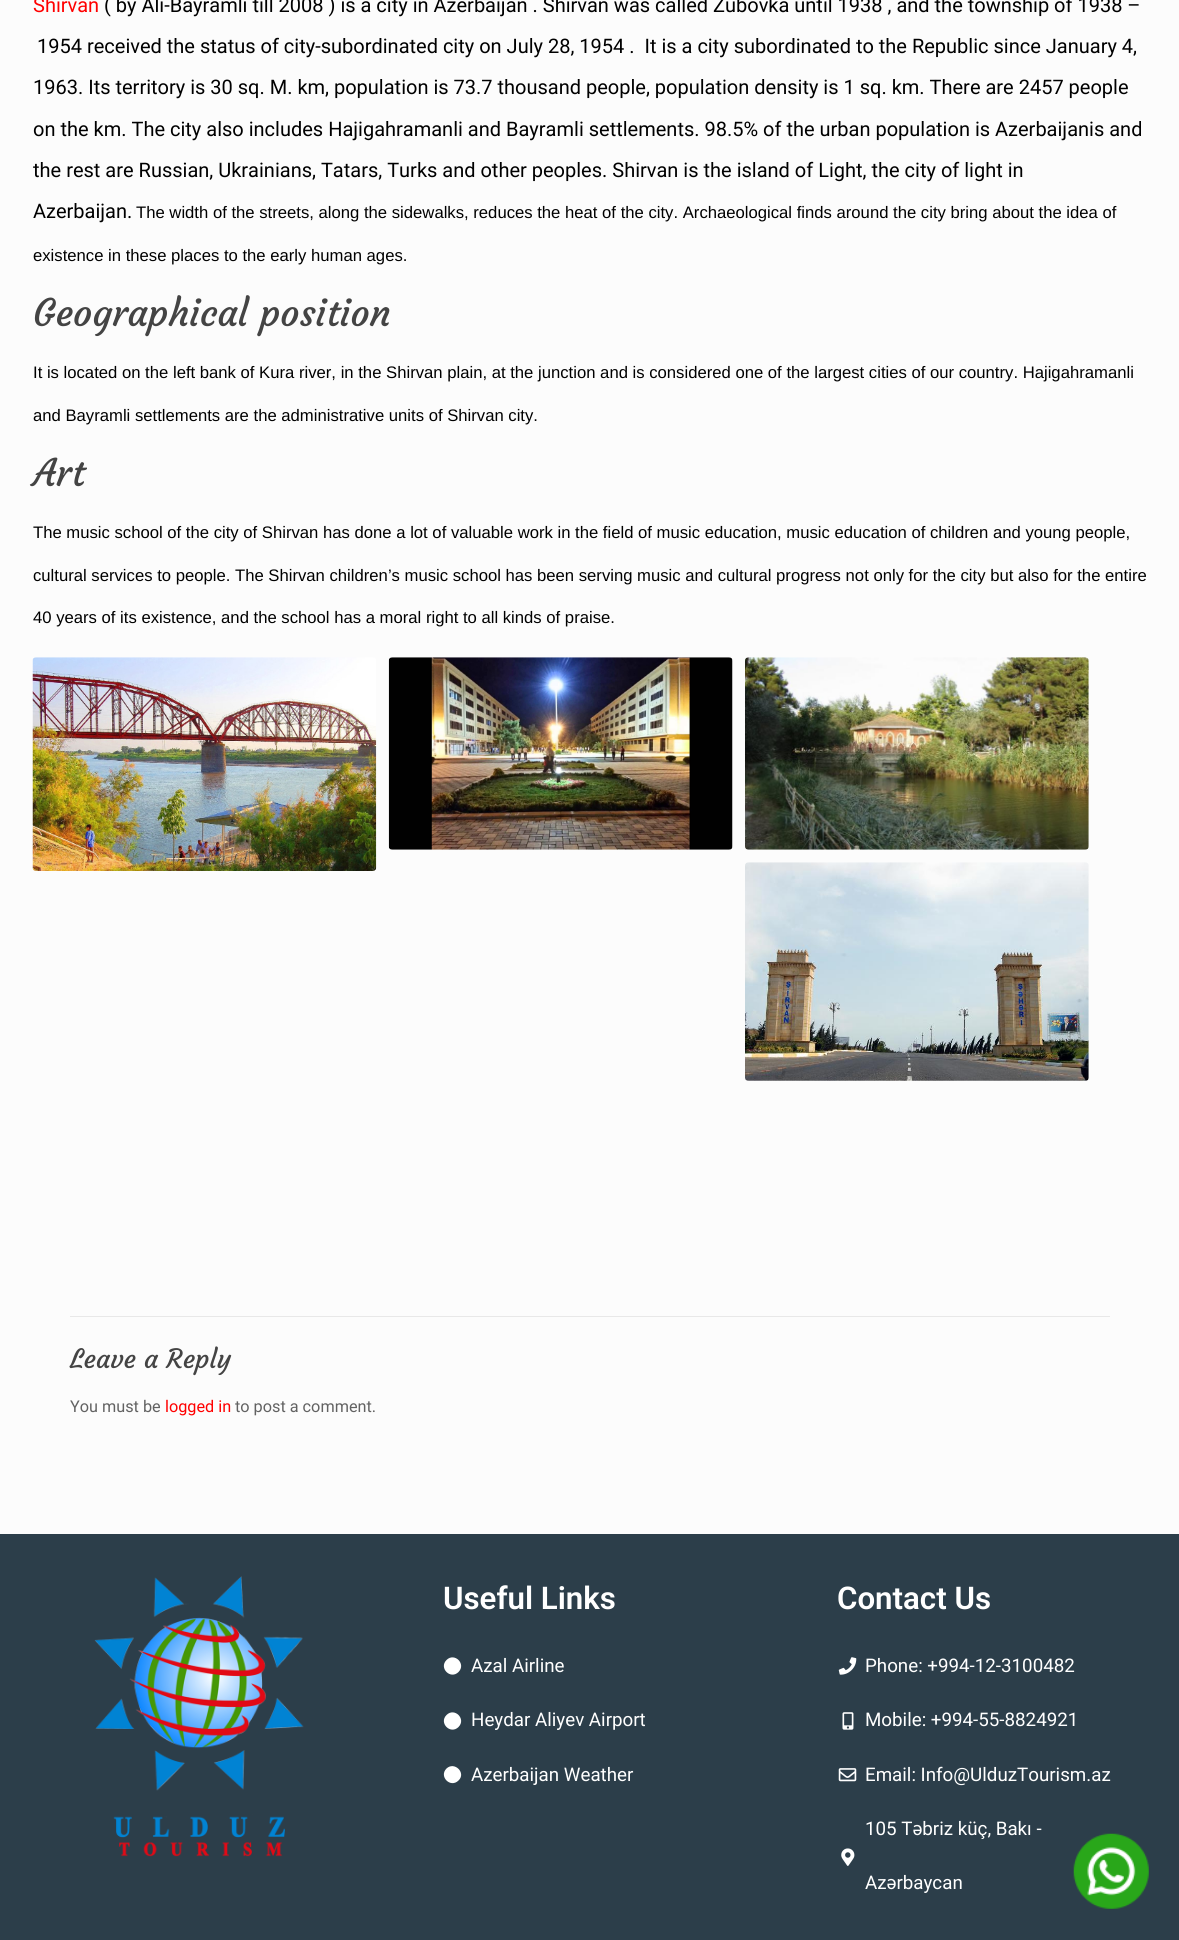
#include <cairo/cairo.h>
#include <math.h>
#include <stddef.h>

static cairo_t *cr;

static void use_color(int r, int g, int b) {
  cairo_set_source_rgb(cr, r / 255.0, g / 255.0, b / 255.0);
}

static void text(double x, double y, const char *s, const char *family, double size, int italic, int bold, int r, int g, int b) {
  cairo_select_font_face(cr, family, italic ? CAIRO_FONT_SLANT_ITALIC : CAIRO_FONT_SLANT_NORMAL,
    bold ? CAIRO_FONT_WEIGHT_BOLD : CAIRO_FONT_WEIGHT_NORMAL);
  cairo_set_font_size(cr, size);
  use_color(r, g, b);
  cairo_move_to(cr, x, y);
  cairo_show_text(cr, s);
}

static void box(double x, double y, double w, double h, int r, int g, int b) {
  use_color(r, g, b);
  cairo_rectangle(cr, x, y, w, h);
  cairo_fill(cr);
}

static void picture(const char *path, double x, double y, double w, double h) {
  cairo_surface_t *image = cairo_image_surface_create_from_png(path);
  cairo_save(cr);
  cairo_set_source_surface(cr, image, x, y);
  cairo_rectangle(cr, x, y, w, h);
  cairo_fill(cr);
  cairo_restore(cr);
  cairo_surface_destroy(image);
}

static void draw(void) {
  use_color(252, 252, 252);
  cairo_paint(cr);
  picture("img_01.png", 32, 657, 345, 214);
  picture("img_02.png", 388, 657, 345, 193);
  picture("img_03.png", 745, 657, 344, 193);
  picture("img_04.png", 745, 862, 344, 219);
  box(70, 1316, 1040, 1, 232, 232, 232);
  box(0, 1534, 1179, 406, 44, 62, 74);
  picture("img_05.png", 94, 1576, 210, 281);
  use_color(255, 255, 255);
  cairo_new_path(cr);
  cairo_move_to(cr, 446.5, 1660);
  cairo_curve_to(cr, 454.5, 1652, 466.5, 1664, 458.5, 1672);
  cairo_curve_to(cr, 450.5, 1680, 438.5, 1668, 446.5, 1660);
  cairo_close_path(cr);
  cairo_fill(cr);
  cairo_new_path(cr);
  cairo_move_to(cr, 446.5, 1715);
  cairo_curve_to(cr, 454.5, 1707, 466.5, 1719, 458.5, 1727);
  cairo_curve_to(cr, 450.5, 1735, 438.5, 1723, 446.5, 1715);
  cairo_close_path(cr);
  cairo_fill(cr);
  cairo_new_path(cr);
  cairo_move_to(cr, 446.5, 1768.5);
  cairo_curve_to(cr, 454.5, 1761, 466.5, 1773, 458.5, 1780.5);
  cairo_curve_to(cr, 450.5, 1788.5, 438.5, 1776.5, 446.5, 1768.5);
  cairo_close_path(cr);
  cairo_fill(cr);
  picture("img_06.png", 838, 1657, 19, 18);
  picture("img_07.png", 842, 1712, 12, 18);
  picture("img_08.png", 838, 1768, 19, 14);
  picture("img_09.png", 841, 1848, 14, 18);
  picture("img_10.png", 1073, 1833, 76, 76);
  text(33, 12, "Shirvan", "Roboto", 20, 0, 0, 255, 0, 0);
  text(104, 12, "( by Ali-Bayramli till 2008 ) is a city in Azerbaijan . Shirvan was called Zubovka until 1938 , and the township of 1938 –", "Roboto", 20, 0, 0, 0, 0, 0);
  text(37, 53, "1954 received the status of city-subordinated city on July 28, 1954 .  It is a city subordinated to the Republic since January 4,", "Roboto", 20, 0, 0, 0, 0, 0);
  text(33, 94, "1963. Its territory is 30 sq. M. km, population is 73.7 thousand people, population density is 1 sq. km. There are 2457 people", "Roboto", 20, 0, 0, 0, 0, 0);
  text(33, 136, "on the km. The city also includes Hajigahramanli and Bayramli settlements. 98.5% of the urban population is Azerbaijanis and", "Roboto", 20, 0, 0, 0, 0, 0);
  text(33, 177, "the rest are Russian, Ukrainians, Tatars, Turks and other peoples. Shirvan is the island of Light, the city of light in", "Roboto", 20, 0, 0, 0, 0, 0);
  text(33, 218, "Azerbaijan.", "Roboto", 20, 0, 0, 0, 0, 0);
  text(136, 218, "The width of the streets, along the sidewalks, reduces the heat of the city. Archaeological finds around the city bring about the idea of", "Liberation Sans", 16.67, 0, 0, 0, 0, 0);
  text(33, 261, "existence in these places to the early human ages.", "Liberation Sans", 16.67, 0, 0, 0, 0, 0);
  text(33, 326, "Geographical position", "Courgette", 37.5, 0, 0, 68, 68, 68);
  text(33, 378, "It is located on the left bank of Kura river, in the Shirvan plain, at the junction and is considered one of the largest cities of our country. Hajigahramanli", "Liberation Sans", 16.67, 0, 0, 0, 0, 0);
  text(33, 421, "and Bayramli settlements are the administrative units of Shirvan city.", "Liberation Sans", 16.67, 0, 0, 0, 0, 0);
  text(33, 486, "Art", "Courgette", 37.5, 0, 0, 68, 68, 68);
  text(33, 538, "The music school of the city of Shirvan has done a lot of valuable work in the field of music education, music education of children and young people,", "Liberation Sans", 16.67, 0, 0, 0, 0, 0);
  text(33, 581, "cultural services to people. The Shirvan children’s music school has been serving music and cultural progress not only for the city but also for the entire", "Liberation Sans", 16.67, 0, 0, 0, 0, 0);
  text(33, 623, "40 years of its existence, and the school has a moral right to all kinds of praise.", "Liberation Sans", 16.67, 0, 0, 0, 0, 0);
  text(70, 1368, "Leave a Reply", "Courgette", 26.25, 0, 0, 68, 68, 68);
  text(70, 1412, "You must be", "Roboto", 16.25, 0, 0, 98, 98, 98);
  text(165, 1412, "logged in", "Roboto", 16.25, 0, 0, 255, 0, 0);
  text(235, 1412, "to post a comment.", "Roboto", 16.25, 0, 0, 98, 98, 98);
  text(443, 1609, "Useful Links", "Roboto SemiBold", 31.25, 0, 0, 255, 255, 255);
  text(471, 1672, "Azal Airline", "Roboto", 18.75, 0, 0, 255, 255, 255);
  text(471, 1726, "Heydar Aliyev Airport", "Roboto", 18.75, 0, 0, 255, 255, 255);
  text(471, 1781, "Azerbaijan Weather", "Roboto", 18.75, 0, 0, 255, 255, 255);
  text(837, 1609, "Contact Us", "Roboto SemiBold", 31.25, 0, 0, 255, 255, 255);
  text(865, 1672, "Phone: +994-12-3100482", "Roboto", 18.75, 0, 0, 255, 255, 255);
  text(865, 1726, "Mobile: +994-55-8824921", "Roboto", 18.75, 0, 0, 255, 255, 255);
  text(865, 1781, "Email: Info@UlduzTourism.az", "Roboto", 18.75, 0, 0, 255, 255, 255);
  text(865, 1835, "105 Təbriz küç, Bakı -", "Roboto", 18.75, 0, 0, 255, 255, 255);
  text(865, 1889, "Azərbaycan", "Roboto", 18.75, 0, 0, 255, 255, 255);
}

int main(void) {
  cairo_surface_t *surface = cairo_image_surface_create(CAIRO_FORMAT_RGB24, 1179, 1940);
  cr = cairo_create(surface);
  cairo_font_options_t *options = cairo_font_options_create();
  cairo_font_options_set_hint_metrics(options, CAIRO_HINT_METRICS_OFF);
  cairo_font_options_set_hint_style(options, CAIRO_HINT_STYLE_NONE);
  cairo_set_font_options(cr, options);
  cairo_set_miter_limit(cr, 4);
  draw();
  cairo_surface_write_to_png(surface, "out.png");
  cairo_font_options_destroy(options);
  cairo_destroy(cr);
  cairo_surface_destroy(surface);
  return 0;
}
